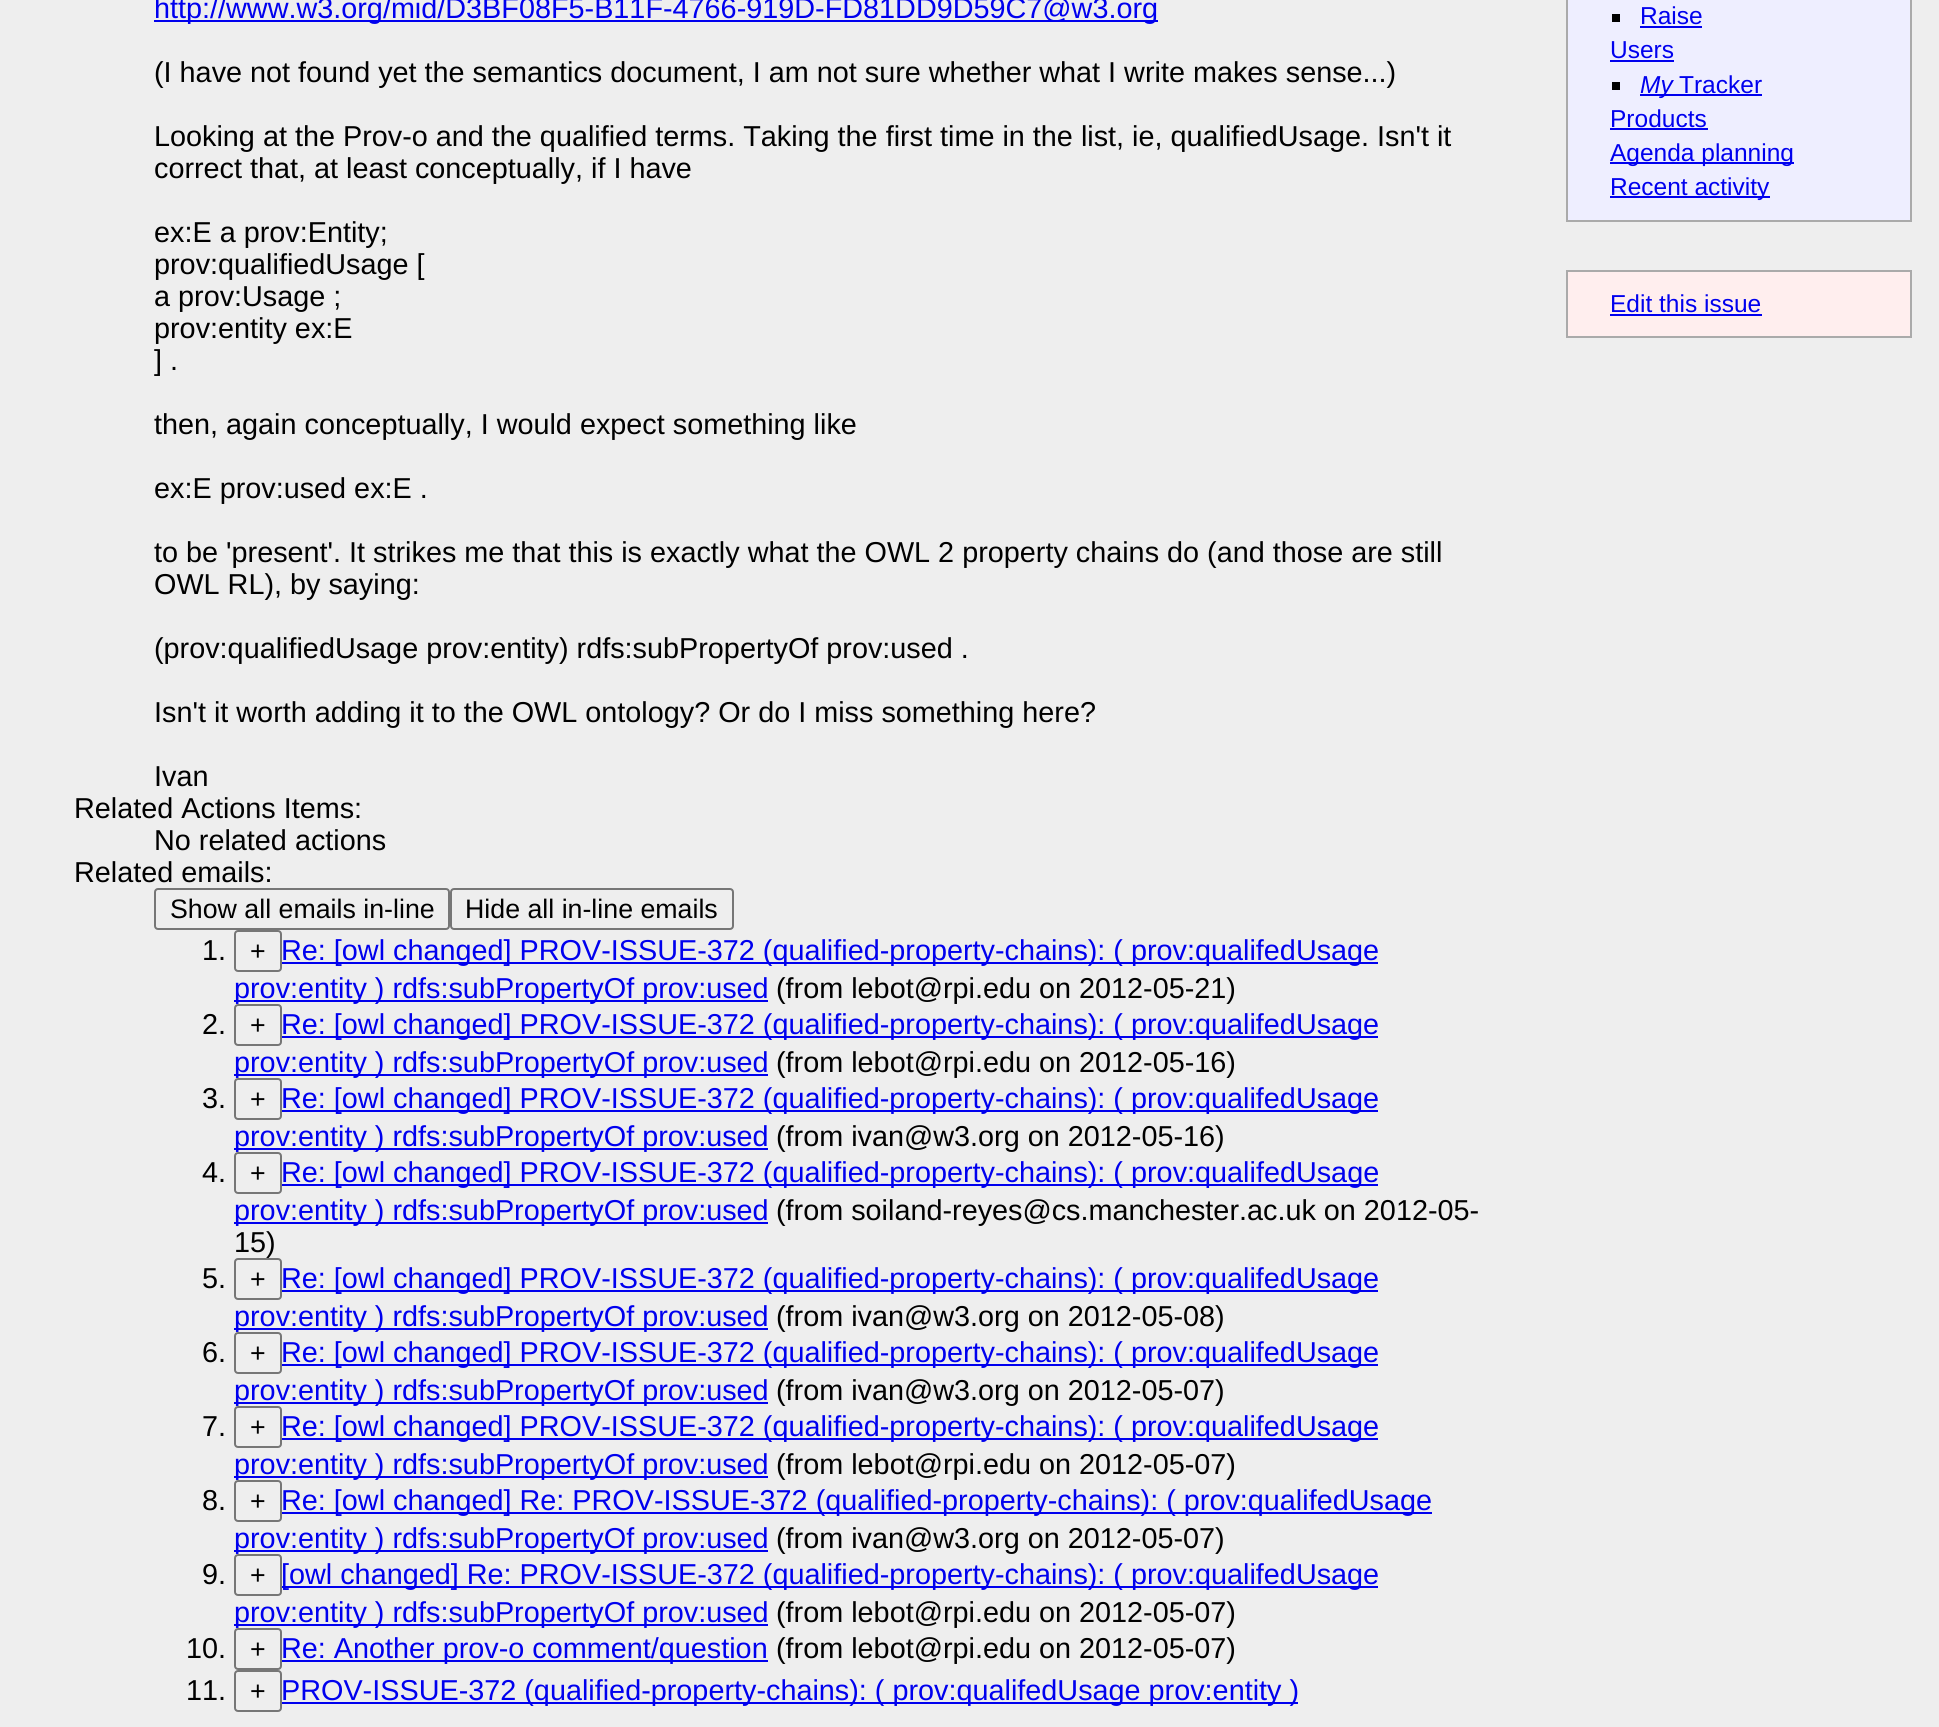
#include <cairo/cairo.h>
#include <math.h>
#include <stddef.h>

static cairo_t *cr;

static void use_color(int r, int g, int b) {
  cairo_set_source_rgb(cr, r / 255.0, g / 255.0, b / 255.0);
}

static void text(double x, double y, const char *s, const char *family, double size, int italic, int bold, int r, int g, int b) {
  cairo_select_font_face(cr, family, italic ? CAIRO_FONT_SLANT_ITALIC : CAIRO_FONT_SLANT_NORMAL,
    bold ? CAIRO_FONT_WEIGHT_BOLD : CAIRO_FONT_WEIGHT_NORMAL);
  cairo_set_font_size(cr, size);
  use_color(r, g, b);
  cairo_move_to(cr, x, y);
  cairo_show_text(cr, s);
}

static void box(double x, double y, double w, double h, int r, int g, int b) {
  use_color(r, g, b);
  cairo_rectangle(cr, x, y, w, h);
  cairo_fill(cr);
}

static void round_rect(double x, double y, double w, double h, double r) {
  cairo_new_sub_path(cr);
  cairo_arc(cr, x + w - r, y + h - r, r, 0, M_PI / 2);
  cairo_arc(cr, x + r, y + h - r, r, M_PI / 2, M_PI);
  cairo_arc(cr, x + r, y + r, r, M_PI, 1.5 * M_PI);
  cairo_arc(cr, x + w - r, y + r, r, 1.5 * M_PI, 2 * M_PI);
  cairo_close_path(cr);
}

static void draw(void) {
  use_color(238, 238, 238);
  cairo_paint(cr);
  box(154, 20, 1004, 2, 0, 0, 238);
  round_rect(155, 889, 294, 40, 3);
  use_color(118, 118, 118);
  cairo_stroke(cr);
  round_rect(451, 889, 282, 40, 3);
  cairo_stroke(cr);
  round_rect(235, 931, 46, 40, 3);
  cairo_stroke(cr);
  box(282, 962, 1096, 2, 0, 0, 238);
  box(234, 1000, 534, 2, 0, 0, 238);
  round_rect(235, 1005, 46, 40, 3);
  use_color(118, 118, 118);
  cairo_stroke(cr);
  box(282, 1036, 1096, 2, 0, 0, 238);
  box(234, 1074, 534, 2, 0, 0, 238);
  round_rect(235, 1079, 46, 40, 3);
  use_color(118, 118, 118);
  cairo_stroke(cr);
  box(282, 1110, 1096, 2, 0, 0, 238);
  box(234, 1148, 534, 2, 0, 0, 238);
  round_rect(235, 1153, 46, 40, 3);
  use_color(118, 118, 118);
  cairo_stroke(cr);
  box(282, 1184, 1096, 2, 0, 0, 238);
  box(234, 1222, 534, 2, 0, 0, 238);
  round_rect(235, 1259, 46, 40, 3);
  use_color(118, 118, 118);
  cairo_stroke(cr);
  box(282, 1290, 1096, 2, 0, 0, 238);
  box(234, 1328, 534, 2, 0, 0, 238);
  round_rect(235, 1333, 46, 40, 3);
  use_color(118, 118, 118);
  cairo_stroke(cr);
  box(282, 1364, 1096, 2, 0, 0, 238);
  box(234, 1402, 534, 2, 0, 0, 238);
  round_rect(235, 1407, 46, 40, 3);
  use_color(118, 118, 118);
  cairo_stroke(cr);
  box(282, 1438, 1096, 2, 0, 0, 238);
  box(234, 1476, 534, 2, 0, 0, 238);
  round_rect(235, 1481, 46, 40, 3);
  use_color(118, 118, 118);
  cairo_stroke(cr);
  box(282, 1512, 1150, 2, 0, 0, 238);
  box(234, 1550, 534, 2, 0, 0, 238);
  round_rect(235, 1555, 46, 40, 3);
  use_color(118, 118, 118);
  cairo_stroke(cr);
  box(282, 1586, 1096, 2, 0, 0, 238);
  box(234, 1624, 534, 2, 0, 0, 238);
  round_rect(235, 1629, 46, 40, 3);
  use_color(118, 118, 118);
  cairo_stroke(cr);
  box(282, 1660, 486, 2, 0, 0, 238);
  round_rect(235, 1671, 46, 40, 3);
  use_color(118, 118, 118);
  cairo_stroke(cr);
  box(282, 1702, 1016, 2, 0, 0, 238);
  use_color(238, 238, 255);
  cairo_rectangle(cr, 1567, -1, 344, 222);
  cairo_fill_preserve(cr);
  use_color(170, 170, 170);
  cairo_stroke(cr);
  box(1612, 14, 8, 8, 0, 0, 0);
  box(1640, 26, 62, 2, 0, 0, 238);
  box(1610, 60, 64, 2, 0, 0, 238);
  box(1612, 82, 8, 8, 0, 0, 0);
  box(1640, 94, 32, 2, 0, 0, 238);
  box(1672, 94, 90, 2, 0, 0, 238);
  box(1610, 128, 98, 2, 0, 0, 238);
  box(1610, 162, 184, 2, 0, 0, 238);
  box(1610, 196, 160, 2, 0, 0, 238);
  use_color(255, 238, 238);
  cairo_rectangle(cr, 1567, 271, 344, 66);
  cairo_fill_preserve(cr);
  use_color(170, 170, 170);
  cairo_stroke(cr);
  box(1610, 314, 152, 2, 0, 0, 238);
  text(154, 18, "http://www.w3.org/mid/D3BF08F5-B11F-4766-919D-FD81DD9D59C7@w3.org", "Liberation Sans", 28.8, 0, 0, 0, 0, 238);
  text(154, 82, "(I have not found yet the semantics document, I am not sure whether what I write makes sense...)", "Liberation Sans", 28.8, 0, 0, 0, 0, 0);
  text(154, 146, "Looking at the Prov-o and the qualified terms. Taking the first time in the list, ie, qualifiedUsage. Isn't it", "Liberation Sans", 28.8, 0, 0, 0, 0, 0);
  text(154, 178, "correct that, at least conceptually, if I have", "Liberation Sans", 28.8, 0, 0, 0, 0, 0);
  text(154, 242, "ex:E a prov:Entity;", "Liberation Sans", 28.8, 0, 0, 0, 0, 0);
  text(154, 274, "prov:qualifiedUsage [", "Liberation Sans", 28.8, 0, 0, 0, 0, 0);
  text(154, 306, "a prov:Usage ;", "Liberation Sans", 28.8, 0, 0, 0, 0, 0);
  text(154, 338, "prov:entity ex:E", "Liberation Sans", 28.8, 0, 0, 0, 0, 0);
  text(154, 370, "] .", "Liberation Sans", 28.8, 0, 0, 0, 0, 0);
  text(154, 434, "then, again conceptually, I would expect something like", "Liberation Sans", 28.8, 0, 0, 0, 0, 0);
  text(154, 498, "ex:E prov:used ex:E .", "Liberation Sans", 28.8, 0, 0, 0, 0, 0);
  text(154, 562, "to be 'present'. It strikes me that this is exactly what the OWL 2 property chains do (and those are still", "Liberation Sans", 28.8, 0, 0, 0, 0, 0);
  text(154, 594, "OWL RL), by saying:", "Liberation Sans", 28.8, 0, 0, 0, 0, 0);
  text(154, 658, "(prov:qualifiedUsage prov:entity) rdfs:subPropertyOf prov:used .", "Liberation Sans", 28.8, 0, 0, 0, 0, 0);
  text(154, 722, "Isn't it worth adding it to the OWL ontology? Or do I miss something here?", "Liberation Sans", 28.8, 0, 0, 0, 0, 0);
  text(154, 786, "Ivan", "Liberation Sans", 28.8, 0, 0, 0, 0, 0);
  text(74, 818, "Related Actions Items:", "Liberation Sans", 28.8, 0, 0, 0, 0, 0);
  text(154, 850, "No related actions", "Liberation Sans", 28.8, 0, 0, 0, 0, 0);
  text(74, 882, "Related emails:", "Liberation Sans", 28.8, 0, 0, 0, 0, 0);
  text(170, 918, "Show all emails in-line", "Liberation Sans", 26.75, 0, 0, 0, 0, 0);
  text(465, 918, "Hide all in-line emails", "Liberation Sans", 26.75, 0, 0, 0, 0, 0);
  text(202, 960, "1.", "Liberation Sans", 28.8, 0, 0, 0, 0, 0);
  text(250, 960, "+", "Liberation Sans", 26.75, 0, 0, 0, 0, 0);
  text(281, 960, "Re: [owl changed] PROV-ISSUE-372 (qualified-property-chains): ( prov:qualifedUsage", "Liberation Sans", 28.8, 0, 0, 0, 0, 238);
  text(234, 998, "prov:entity ) rdfs:subPropertyOf prov:used", "Liberation Sans", 28.8, 0, 0, 0, 0, 238);
  text(776, 998, "(from lebot@rpi.edu on 2012-05-21)", "Liberation Sans", 28.8, 0, 0, 0, 0, 0);
  text(202, 1034, "2.", "Liberation Sans", 28.8, 0, 0, 0, 0, 0);
  text(250, 1034, "+", "Liberation Sans", 26.75, 0, 0, 0, 0, 0);
  text(281, 1034, "Re: [owl changed] PROV-ISSUE-372 (qualified-property-chains): ( prov:qualifedUsage", "Liberation Sans", 28.8, 0, 0, 0, 0, 238);
  text(234, 1072, "prov:entity ) rdfs:subPropertyOf prov:used", "Liberation Sans", 28.8, 0, 0, 0, 0, 238);
  text(776, 1072, "(from lebot@rpi.edu on 2012-05-16)", "Liberation Sans", 28.8, 0, 0, 0, 0, 0);
  text(202, 1108, "3.", "Liberation Sans", 28.8, 0, 0, 0, 0, 0);
  text(250, 1108, "+", "Liberation Sans", 26.75, 0, 0, 0, 0, 0);
  text(281, 1108, "Re: [owl changed] PROV-ISSUE-372 (qualified-property-chains): ( prov:qualifedUsage", "Liberation Sans", 28.8, 0, 0, 0, 0, 238);
  text(234, 1146, "prov:entity ) rdfs:subPropertyOf prov:used", "Liberation Sans", 28.8, 0, 0, 0, 0, 238);
  text(776, 1146, "(from ivan@w3.org on 2012-05-16)", "Liberation Sans", 28.8, 0, 0, 0, 0, 0);
  text(202, 1182, "4.", "Liberation Sans", 28.8, 0, 0, 0, 0, 0);
  text(250, 1182, "+", "Liberation Sans", 26.75, 0, 0, 0, 0, 0);
  text(281, 1182, "Re: [owl changed] PROV-ISSUE-372 (qualified-property-chains): (", "Liberation Sans", 28.8, 0, 0, 0, 0, 238);
  text(1131, 1182, "prov:qualifedUsage", "Liberation Sans", 28.8, 0, 0, 0, 0, 238);
  text(234, 1220, "prov:entity ) rdfs:subPropertyOf prov:used", "Liberation Sans", 28.8, 0, 0, 0, 0, 238);
  text(776, 1220, "(from soiland-reyes@cs.manchester.ac.uk on 2012-05-", "Liberation Sans", 28.8, 0, 0, 0, 0, 0);
  text(234, 1252, "15)", "Liberation Sans", 28.8, 0, 0, 0, 0, 0);
  text(202, 1288, "5.", "Liberation Sans", 28.8, 0, 0, 0, 0, 0);
  text(250, 1288, "+", "Liberation Sans", 26.75, 0, 0, 0, 0, 0);
  text(281, 1288, "Re: [owl changed] PROV-ISSUE-372 (qualified-property-chains): ( prov:qualifedUsage", "Liberation Sans", 28.8, 0, 0, 0, 0, 238);
  text(234, 1326, "prov:entity ) rdfs:subPropertyOf prov:used", "Liberation Sans", 28.8, 0, 0, 0, 0, 238);
  text(776, 1326, "(from ivan@w3.org on 2012-05-08)", "Liberation Sans", 28.8, 0, 0, 0, 0, 0);
  text(202, 1362, "6.", "Liberation Sans", 28.8, 0, 0, 0, 0, 0);
  text(250, 1362, "+", "Liberation Sans", 26.75, 0, 0, 0, 0, 0);
  text(281, 1362, "Re: [owl changed] PROV-ISSUE-372 (qualified-property-chains): ( prov:qualifedUsage", "Liberation Sans", 28.8, 0, 0, 0, 0, 238);
  text(234, 1400, "prov:entity ) rdfs:subPropertyOf prov:used", "Liberation Sans", 28.8, 0, 0, 0, 0, 238);
  text(776, 1400, "(from ivan@w3.org on 2012-05-07)", "Liberation Sans", 28.8, 0, 0, 0, 0, 0);
  text(202, 1436, "7.", "Liberation Sans", 28.8, 0, 0, 0, 0, 0);
  text(250, 1436, "+", "Liberation Sans", 26.75, 0, 0, 0, 0, 0);
  text(281, 1436, "Re: [owl changed] PROV-ISSUE-372 (qualified-property-chains): ( prov:qualifedUsage", "Liberation Sans", 28.8, 0, 0, 0, 0, 238);
  text(234, 1474, "prov:entity ) rdfs:subPropertyOf prov:used", "Liberation Sans", 28.8, 0, 0, 0, 0, 238);
  text(776, 1474, "(from lebot@rpi.edu on 2012-05-07)", "Liberation Sans", 28.8, 0, 0, 0, 0, 0);
  text(202, 1510, "8.", "Liberation Sans", 28.8, 0, 0, 0, 0, 0);
  text(250, 1510, "+", "Liberation Sans", 26.75, 0, 0, 0, 0, 0);
  text(281, 1510, "Re: [owl changed] Re: PROV-ISSUE-372 (qualified-property-chains): ( prov:qualifedUsage", "Liberation Sans", 28.8, 0, 0, 0, 0, 238);
  text(234, 1548, "prov:entity ) rdfs:subPropertyOf prov:used", "Liberation Sans", 28.8, 0, 0, 0, 0, 238);
  text(776, 1548, "(from ivan@w3.org on 2012-05-07)", "Liberation Sans", 28.8, 0, 0, 0, 0, 0);
  text(202, 1584, "9.", "Liberation Sans", 28.8, 0, 0, 0, 0, 0);
  text(250, 1584, "+", "Liberation Sans", 26.75, 0, 0, 0, 0, 0);
  text(281, 1584, "[owl changed] Re: PROV-ISSUE-372 (qualified-property-chains): ( prov:qualifedUsage", "Liberation Sans", 28.8, 0, 0, 0, 0, 238);
  text(234, 1622, "prov:entity ) rdfs:subPropertyOf prov:used", "Liberation Sans", 28.8, 0, 0, 0, 0, 238);
  text(776, 1622, "(from lebot@rpi.edu on 2012-05-07)", "Liberation Sans", 28.8, 0, 0, 0, 0, 0);
  text(186, 1658, "10.", "Liberation Sans", 28.8, 0, 0, 0, 0, 0);
  text(250, 1658, "+", "Liberation Sans", 26.75, 0, 0, 0, 0, 0);
  text(281, 1658, "Re: Another prov-o comment/question", "Liberation Sans", 28.8, 0, 0, 0, 0, 238);
  text(776, 1658, "(from lebot@rpi.edu on 2012-05-07)", "Liberation Sans", 28.8, 0, 0, 0, 0, 0);
  text(186, 1700, "11.", "Liberation Sans", 28.8, 0, 0, 0, 0, 0);
  text(250, 1700, "+", "Liberation Sans", 26.75, 0, 0, 0, 0, 0);
  text(281, 1700, "PROV-ISSUE-372 (qualified-property-chains): ( prov:qualifedUsage prov:entity )", "Liberation Sans", 28.8, 0, 0, 0, 0, 238);
  text(1640, 24, "Raise", "Liberation Sans", 24.5, 0, 0, 0, 0, 238);
  text(1610, 58, "Users", "Liberation Sans", 24.5, 0, 0, 0, 0, 238);
  text(1640, 93, "My", "Liberation Sans", 24.5, 1, 0, 0, 0, 238);
  text(1679, 93, "Tracker", "Liberation Sans", 24.5, 0, 0, 0, 0, 238);
  text(1610, 127, "Products", "Liberation Sans", 24.5, 0, 0, 0, 0, 238);
  text(1610, 161, "Agenda planning", "Liberation Sans", 24.5, 0, 0, 0, 0, 238);
  text(1610, 195, "Recent activity", "Liberation Sans", 24.5, 0, 0, 0, 0, 238);
  text(1610, 312, "Edit this issue", "Liberation Sans", 24.5, 0, 0, 0, 0, 238);
}

int main(void) {
  cairo_surface_t *surface = cairo_image_surface_create(CAIRO_FORMAT_RGB24, 1939, 1727);
  cr = cairo_create(surface);
  cairo_font_options_t *options = cairo_font_options_create();
  cairo_font_options_set_hint_metrics(options, CAIRO_HINT_METRICS_OFF);
  cairo_font_options_set_hint_style(options, CAIRO_HINT_STYLE_NONE);
  cairo_set_font_options(cr, options);
  cairo_set_miter_limit(cr, 4);
  draw();
  cairo_surface_write_to_png(surface, "out.png");
  cairo_font_options_destroy(options);
  cairo_destroy(cr);
  cairo_surface_destroy(surface);
  return 0;
}
